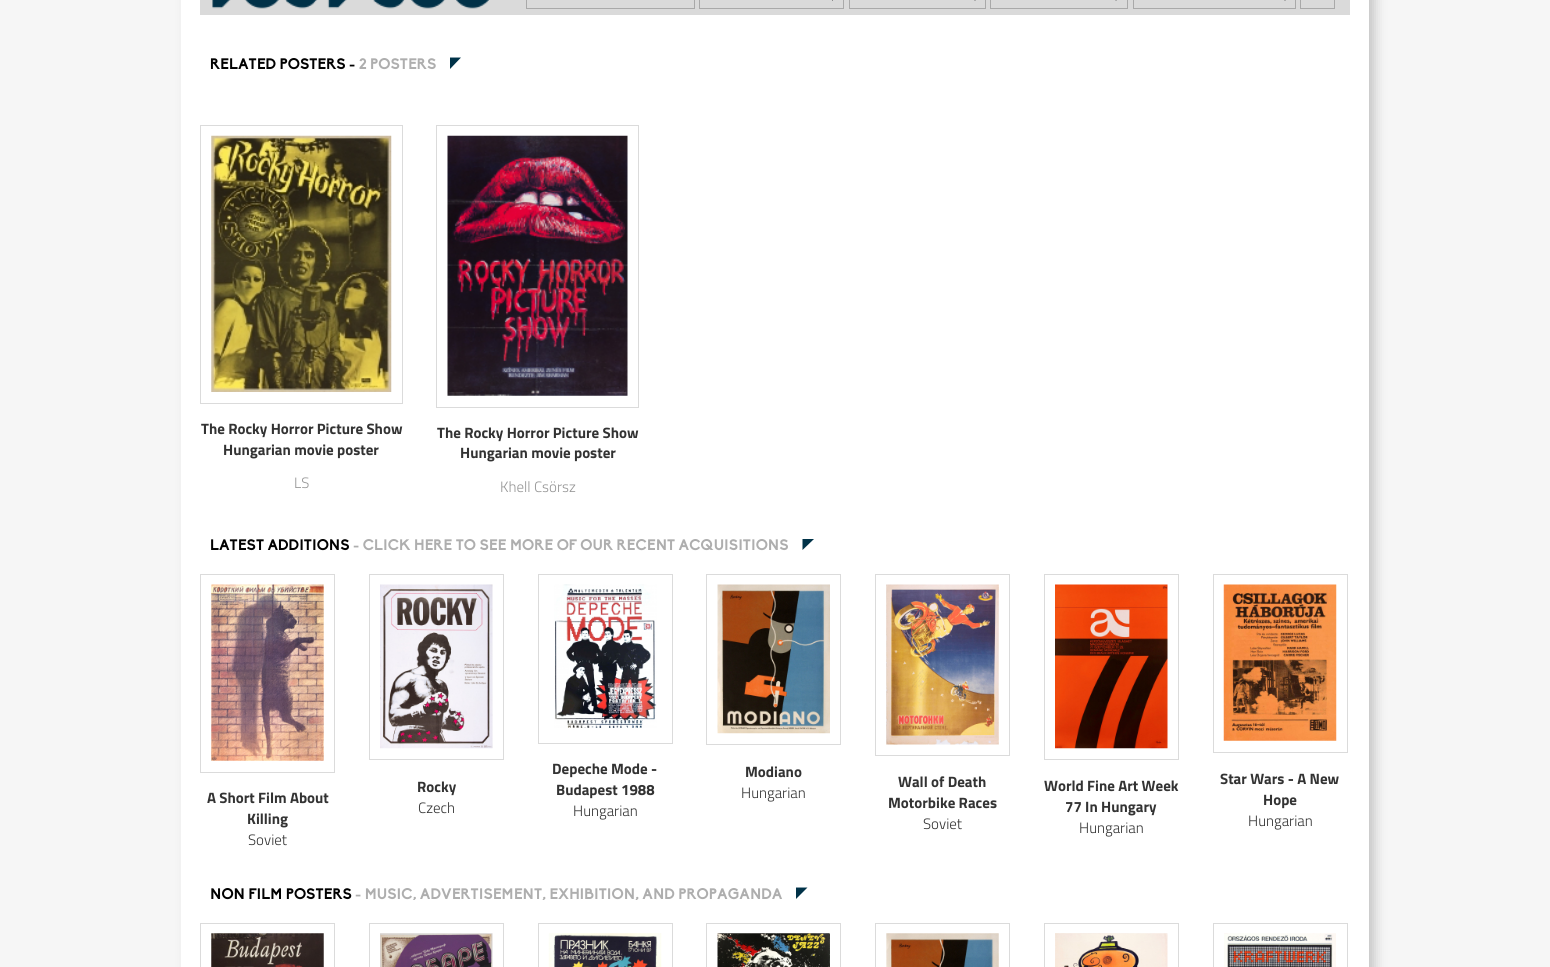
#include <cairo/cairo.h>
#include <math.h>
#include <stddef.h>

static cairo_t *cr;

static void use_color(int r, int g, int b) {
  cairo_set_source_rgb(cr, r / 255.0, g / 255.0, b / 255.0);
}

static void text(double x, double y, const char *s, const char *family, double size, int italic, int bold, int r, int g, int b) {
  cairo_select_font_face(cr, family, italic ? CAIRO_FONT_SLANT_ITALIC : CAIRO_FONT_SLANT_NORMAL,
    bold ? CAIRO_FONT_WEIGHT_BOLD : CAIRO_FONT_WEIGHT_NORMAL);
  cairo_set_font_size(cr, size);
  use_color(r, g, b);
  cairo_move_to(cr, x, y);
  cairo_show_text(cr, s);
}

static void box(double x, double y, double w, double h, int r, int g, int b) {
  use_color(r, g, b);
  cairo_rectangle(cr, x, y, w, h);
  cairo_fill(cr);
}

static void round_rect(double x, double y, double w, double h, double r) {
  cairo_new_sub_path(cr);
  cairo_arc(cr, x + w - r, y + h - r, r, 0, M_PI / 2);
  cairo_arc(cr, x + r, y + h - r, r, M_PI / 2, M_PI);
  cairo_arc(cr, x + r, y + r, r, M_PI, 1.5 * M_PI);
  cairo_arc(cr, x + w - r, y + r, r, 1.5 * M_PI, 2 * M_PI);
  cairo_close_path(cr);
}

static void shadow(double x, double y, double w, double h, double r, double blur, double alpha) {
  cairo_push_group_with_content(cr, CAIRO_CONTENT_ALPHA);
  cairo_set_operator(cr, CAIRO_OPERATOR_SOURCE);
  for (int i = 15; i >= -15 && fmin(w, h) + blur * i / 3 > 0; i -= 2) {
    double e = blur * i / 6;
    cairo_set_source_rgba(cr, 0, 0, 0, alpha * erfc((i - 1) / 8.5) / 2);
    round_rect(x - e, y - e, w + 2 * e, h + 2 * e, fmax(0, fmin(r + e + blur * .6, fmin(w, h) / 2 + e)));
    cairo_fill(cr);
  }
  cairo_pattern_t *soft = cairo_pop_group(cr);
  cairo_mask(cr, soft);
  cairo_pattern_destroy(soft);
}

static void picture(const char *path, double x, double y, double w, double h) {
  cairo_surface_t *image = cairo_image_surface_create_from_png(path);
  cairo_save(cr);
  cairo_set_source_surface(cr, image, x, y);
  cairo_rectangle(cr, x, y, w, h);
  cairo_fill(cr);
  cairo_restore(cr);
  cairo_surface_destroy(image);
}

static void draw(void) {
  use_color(246, 246, 246);
  cairo_paint(cr);
  use_color(0, 0, 0);
  shadow(188, -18, 1187, 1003, 0, 6, 0.2);
  box(181, 0, 1188, 967, 255, 255, 255);
  box(200, 0, 1150, 15, 218, 218, 218);
  cairo_rectangle(cr, 526.5, -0.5, 168, 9);
  use_color(169, 169, 169);
  cairo_set_line_width(cr, 1);
  cairo_stroke(cr);
  cairo_rectangle(cr, 699.5, -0.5, 144, 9);
  cairo_stroke(cr);
  use_color(0, 0, 0);
  cairo_new_path(cr);
  cairo_move_to(cr, 829, -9);
  cairo_line_to(cr, 836, -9);
  cairo_line_to(cr, 832.5, 1);
  cairo_close_path(cr);
  cairo_fill(cr);
  cairo_rectangle(cr, 849.5, -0.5, 136, 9);
  use_color(169, 169, 169);
  cairo_stroke(cr);
  use_color(0, 0, 0);
  cairo_new_path(cr);
  cairo_move_to(cr, 971, -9);
  cairo_line_to(cr, 979, -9);
  cairo_line_to(cr, 975, 1);
  cairo_close_path(cr);
  cairo_fill(cr);
  cairo_rectangle(cr, 990.5, -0.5, 137, 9);
  use_color(169, 169, 169);
  cairo_stroke(cr);
  use_color(0, 0, 0);
  cairo_new_path(cr);
  cairo_move_to(cr, 1112.5, -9);
  cairo_line_to(cr, 1120, -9);
  cairo_line_to(cr, 1116, 1);
  cairo_close_path(cr);
  cairo_fill(cr);
  cairo_rectangle(cr, 1133.5, -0.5, 162, 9);
  use_color(169, 169, 169);
  cairo_stroke(cr);
  use_color(0, 0, 0);
  cairo_new_path(cr);
  cairo_move_to(cr, 1281, -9);
  cairo_line_to(cr, 1289, -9);
  cairo_line_to(cr, 1285, 1);
  cairo_close_path(cr);
  cairo_fill(cr);
  cairo_rectangle(cr, 1300.5, -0.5, 34, 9);
  use_color(169, 169, 169);
  cairo_stroke(cr);
  picture("img_01.png", 212, 0, 277, 9);
  use_color(0, 50, 72);
  cairo_new_path(cr);
  cairo_move_to(cr, 450, 57.5);
  cairo_line_to(cr, 461, 57.5);
  cairo_line_to(cr, 450, 69);
  cairo_close_path(cr);
  cairo_fill(cr);
  cairo_rectangle(cr, 200.5, 125.5, 202, 278);
  use_color(219, 219, 219);
  cairo_stroke(cr);
  picture("img_02.png", 211, 135, 181, 257);
  cairo_rectangle(cr, 436.5, 125.5, 202, 282);
  cairo_stroke(cr);
  picture("img_03.png", 447, 135, 181, 261);
  use_color(0, 50, 72);
  cairo_new_path(cr);
  cairo_move_to(cr, 802.5, 539);
  cairo_line_to(cr, 814, 539);
  cairo_line_to(cr, 802.5, 550);
  cairo_close_path(cr);
  cairo_fill(cr);
  cairo_rectangle(cr, 200.5, 574.5, 134, 198);
  use_color(219, 219, 219);
  cairo_stroke(cr);
  picture("img_04.png", 211, 584, 113, 177);
  cairo_rectangle(cr, 369.5, 574.5, 134, 185);
  cairo_stroke(cr);
  picture("img_05.png", 380, 584, 113, 165);
  cairo_rectangle(cr, 538.5, 574.5, 134, 169);
  cairo_stroke(cr);
  picture("img_06.png", 554, 584, 103, 144);
  cairo_rectangle(cr, 706.5, 574.5, 134, 170);
  cairo_stroke(cr);
  picture("img_07.png", 717, 584, 113, 150);
  cairo_rectangle(cr, 875.5, 574.5, 134, 181);
  cairo_stroke(cr);
  picture("img_08.png", 886, 584, 113, 161);
  cairo_rectangle(cr, 1044.5, 574.5, 134, 185);
  cairo_stroke(cr);
  picture("img_09.png", 1055, 584, 113, 165);
  cairo_rectangle(cr, 1213.5, 574.5, 134, 178);
  cairo_stroke(cr);
  picture("img_10.png", 1223, 584, 114, 157);
  use_color(0, 50, 72);
  cairo_new_path(cr);
  cairo_move_to(cr, 796, 887.5);
  cairo_line_to(cr, 807.5, 887.5);
  cairo_line_to(cr, 796, 899);
  cairo_close_path(cr);
  cairo_fill(cr);
  cairo_rectangle(cr, 200.5, 923.5, 134, 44);
  use_color(219, 219, 219);
  cairo_stroke(cr);
  picture("img_11.png", 211, 933, 113, 34);
  cairo_rectangle(cr, 369.5, 923.5, 134, 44);
  cairo_stroke(cr);
  picture("img_12.png", 380, 933, 113, 34);
  cairo_rectangle(cr, 538.5, 923.5, 134, 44);
  cairo_stroke(cr);
  picture("img_13.png", 548, 933, 114, 34);
  cairo_rectangle(cr, 706.5, 923.5, 134, 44);
  cairo_stroke(cr);
  picture("img_14.png", 717, 933, 113, 34);
  cairo_rectangle(cr, 875.5, 923.5, 134, 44);
  cairo_stroke(cr);
  picture("img_15.png", 886, 933, 113, 34);
  cairo_rectangle(cr, 1044.5, 923.5, 134, 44);
  cairo_stroke(cr);
  picture("img_16.png", 1055, 933, 113, 34);
  cairo_rectangle(cr, 1213.5, 923.5, 134, 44);
  cairo_stroke(cr);
  picture("img_17.png", 1224, 933, 112, 34);
  text(210, 69, "RELATED POSTERS -", "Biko", 15, 0, 1, 1, 1, 1);
  text(359, 69, "2 POSTERS", "Biko", 15, 0, 1, 174, 174, 174);
  text(201, 434, "The Rocky Horror Picture Show", "Titillium Web", 15, 0, 1, 51, 51, 51);
  text(223, 455, "Hungarian movie poster", "Titillium Web", 15, 0, 1, 51, 51, 51);
  text(294, 488, "LS", "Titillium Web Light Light", 15, 0, 0, 149, 149, 149);
  text(437, 438, "The Rocky Horror Picture Show", "Titillium Web", 15, 0, 1, 51, 51, 51);
  text(460, 458, "Hungarian movie poster", "Titillium Web", 15, 0, 1, 51, 51, 51);
  text(500, 492, "Khell Csörsz", "Titillium Web Light Light", 15, 0, 0, 149, 149, 149);
  text(210, 550, "LATEST ADDITIONS", "Biko", 15, 0, 1, 1, 1, 1);
  text(353, 550, "- CLICK HERE TO SEE MORE OF OUR RECENT ACQUISITIONS", "Biko", 15, 0, 1, 174, 174, 174);
  text(207, 803, "A Short Film About", "Titillium Web", 15, 0, 1, 51, 51, 51);
  text(247, 824, "Killing", "Titillium Web", 15, 0, 1, 51, 51, 51);
  text(248, 845, "Soviet", "Titillium Web Light Light", 15, 0, 0, 51, 51, 51);
  text(417, 792, "Rocky", "Titillium Web", 15, 0, 1, 51, 51, 51);
  text(418, 813, "Czech", "Titillium Web Light Light", 15, 0, 0, 51, 51, 51);
  text(552, 774, "Depeche Mode -", "Titillium Web", 15, 0, 1, 51, 51, 51);
  text(556, 795, "Budapest 1988", "Titillium Web", 15, 0, 1, 51, 51, 51);
  text(573, 816, "Hungarian", "Titillium Web Light Light", 15, 0, 0, 51, 51, 51);
  text(745, 777, "Modiano", "Titillium Web", 15, 0, 1, 51, 51, 51);
  text(741, 798, "Hungarian", "Titillium Web Light Light", 15, 0, 0, 51, 51, 51);
  text(898, 787, "Wall of Death", "Titillium Web", 15, 0, 1, 51, 51, 51);
  text(888, 808, "Motorbike Races", "Titillium Web", 15, 0, 1, 51, 51, 51);
  text(923, 829, "Soviet", "Titillium Web Light Light", 15, 0, 0, 51, 51, 51);
  text(1044, 791, "World Fine Art Week", "Titillium Web", 15, 0, 1, 51, 51, 51);
  text(1065, 812, "77 In Hungary", "Titillium Web", 15, 0, 1, 51, 51, 51);
  text(1079, 833, "Hungarian", "Titillium Web Light Light", 15, 0, 0, 51, 51, 51);
  text(1220, 784, "Star Wars - A New", "Titillium Web", 15, 0, 1, 51, 51, 51);
  text(1263, 805, "Hope", "Titillium Web", 15, 0, 1, 51, 51, 51);
  text(1248, 826, "Hungarian", "Titillium Web Light Light", 15, 0, 0, 51, 51, 51);
  text(210, 899, "NON FILM POSTERS", "Biko", 15, 0, 1, 1, 1, 1);
  text(355, 899, "- MUSIC, ADVERTISEMENT, EXHIBITION, AND PROPAGANDA", "Biko", 15, 0, 1, 174, 174, 174);
}

int main(void) {
  cairo_surface_t *surface = cairo_image_surface_create(CAIRO_FORMAT_RGB24, 1550, 967);
  cr = cairo_create(surface);
  cairo_font_options_t *options = cairo_font_options_create();
  cairo_font_options_set_hint_metrics(options, CAIRO_HINT_METRICS_OFF);
  cairo_font_options_set_hint_style(options, CAIRO_HINT_STYLE_NONE);
  cairo_set_font_options(cr, options);
  cairo_set_miter_limit(cr, 4);
  draw();
  cairo_surface_write_to_png(surface, "out.png");
  cairo_font_options_destroy(options);
  cairo_destroy(cr);
  cairo_surface_destroy(surface);
  return 0;
}
